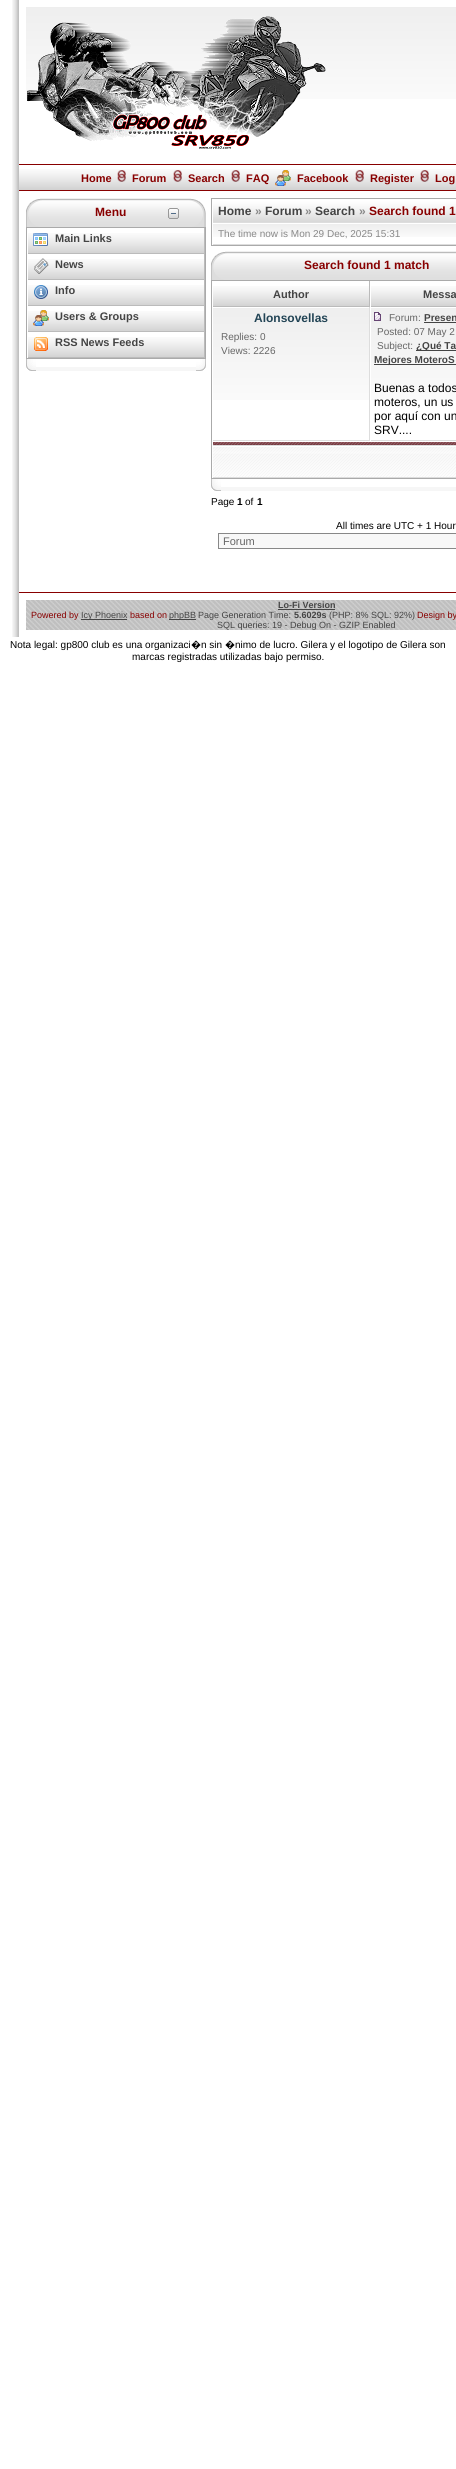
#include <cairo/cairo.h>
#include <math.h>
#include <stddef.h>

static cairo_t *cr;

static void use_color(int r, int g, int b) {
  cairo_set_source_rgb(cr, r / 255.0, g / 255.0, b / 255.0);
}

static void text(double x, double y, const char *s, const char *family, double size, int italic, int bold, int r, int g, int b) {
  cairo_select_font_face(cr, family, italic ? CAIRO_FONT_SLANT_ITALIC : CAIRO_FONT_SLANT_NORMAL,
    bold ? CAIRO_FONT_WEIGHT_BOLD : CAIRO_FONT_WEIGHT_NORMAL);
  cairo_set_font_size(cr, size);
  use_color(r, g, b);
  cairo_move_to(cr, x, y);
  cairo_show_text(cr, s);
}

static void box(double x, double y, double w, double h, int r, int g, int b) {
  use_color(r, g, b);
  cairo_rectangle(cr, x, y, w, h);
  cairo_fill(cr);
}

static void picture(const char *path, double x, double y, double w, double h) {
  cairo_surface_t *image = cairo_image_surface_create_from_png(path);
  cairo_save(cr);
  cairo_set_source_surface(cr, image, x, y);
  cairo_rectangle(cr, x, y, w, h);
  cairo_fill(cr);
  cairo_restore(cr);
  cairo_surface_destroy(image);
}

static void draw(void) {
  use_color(255, 255, 255);
  cairo_paint(cr);
  picture("img_01.png", 12, 0, 7, 637);
  picture("img_02.png", 26, 7, 430, 92);
  picture("img_03.png", 27, 16, 299, 133);
  picture("img_04.png", 19, 169, 437, 21);
  box(19, 164, 437, 1, 136, 0, 0);
  box(19, 190, 437, 1, 136, 0, 0);
  picture("img_05.png", 117, 170, 9, 12);
  picture("img_05.png", 173, 170, 9, 12);
  picture("img_05.png", 231, 170, 9, 12);
  picture("img_06.png", 275, 170, 16, 16);
  picture("img_05.png", 355, 170, 9, 12);
  picture("img_05.png", 420, 170, 9, 12);
  picture("img_07.png", 26, 198, 27, 29);
  picture("img_08.png", 53, 198, 126, 29);
  picture("img_09.png", 168, 208, 11, 11);
  picture("img_10.png", 179, 198, 27, 29);
  cairo_rectangle(cr, 26.5, 227.5, 179, 131);
  use_color(170, 170, 170);
  cairo_set_line_width(cr, 1);
  cairo_stroke(cr);
  picture("img_11.png", 28, 233, 176, 20);
  box(204, 228, 1, 130, 187, 187, 187);
  box(27, 253, 178, 1, 187, 187, 187);
  box(27, 253, 1, 1, 255, 255, 255);
  picture("img_12.png", 33, 233, 15, 13);
  picture("img_11.png", 28, 259, 176, 20);
  box(27, 279, 178, 1, 187, 187, 187);
  box(27, 279, 1, 1, 255, 255, 255);
  picture("img_13.png", 34, 258, 15, 16);
  picture("img_11.png", 28, 285, 176, 20);
  box(27, 305, 178, 1, 187, 187, 187);
  box(27, 305, 1, 1, 255, 255, 255);
  picture("img_14.png", 34, 285, 14, 14);
  picture("img_11.png", 28, 311, 176, 20);
  box(27, 331, 178, 1, 187, 187, 187);
  box(27, 331, 1, 1, 255, 255, 255);
  picture("img_15.png", 33, 310, 16, 16);
  picture("img_11.png", 28, 337, 176, 20);
  box(27, 357, 178, 1, 187, 187, 187);
  box(27, 357, 1, 1, 255, 255, 255);
  picture("img_16.png", 34, 337, 14, 14);
  picture("img_17.png", 26, 359, 10, 12);
  box(36, 367, 160, 4, 246, 246, 246);
  picture("img_18.png", 196, 359, 10, 12);
  cairo_rectangle(cr, 211.5, 198.5, 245, 47);
  use_color(170, 170, 170);
  cairo_stroke(cr);
  picture("img_19.png", 213, 200, 243, 22);
  box(212, 222, 244, 1, 221, 221, 221);
  box(212, 222, 1, 1, 255, 255, 255);
  picture("img_20.png", 213, 224, 243, 13);
  box(212, 244, 244, 1, 221, 221, 221);
  box(212, 244, 1, 1, 255, 255, 255);
  picture("img_07.png", 211, 251, 27, 29);
  picture("img_21.png", 238, 251, 218, 29);
  cairo_rectangle(cr, 211.5, 280.5, 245, 198);
  use_color(170, 170, 170);
  cairo_stroke(cr);
  picture("img_22.png", 213, 286, 156, 20);
  box(369, 281, 1, 26, 187, 187, 187);
  box(212, 306, 244, 1, 187, 187, 187);
  box(212, 306, 1, 1, 255, 255, 255);
  picture("img_23.png", 371, 286, 85, 20);
  box(370, 306, 1, 1, 255, 255, 255);
  picture("img_24.png", 213, 308, 156, 92);
  box(369, 307, 1, 134, 221, 221, 221);
  box(212, 440, 244, 1, 221, 221, 221);
  box(212, 440, 1, 1, 255, 255, 255);
  picture("img_25.png", 371, 308, 85, 92);
  box(370, 440, 1, 1, 255, 255, 255);
  picture("img_26.png", 374, 312, 7, 9);
  box(424, 322, 32, 1, 68, 68, 68);
  box(416, 350, 40, 1, 68, 68, 68);
  box(374, 364, 82, 1, 68, 68, 68);
  picture("img_27.png", 213, 442, 243, 3);
  box(212, 445, 244, 1, 221, 221, 221);
  box(212, 441, 1, 5, 255, 255, 255);
  picture("img_28.png", 213, 447, 243, 30);
  box(212, 477, 244, 1, 221, 221, 221);
  box(212, 477, 1, 1, 255, 255, 255);
  picture("img_17.png", 211, 479, 10, 12);
  box(221, 487, 235, 4, 246, 246, 246);
  use_color(248, 248, 248);
  cairo_rectangle(cr, 218.5, 533.5, 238, 15);
  cairo_fill_preserve(cr);
  use_color(136, 136, 136);
  cairo_stroke(cr);
  box(19, 592, 437, 1, 136, 0, 0);
  picture("img_29.png", 26, 600, 430, 30);
  box(81, 619, 46, 1, 68, 68, 68);
  box(169, 619, 27, 1, 68, 68, 68);
  box(278, 609, 57, 1, 68, 68, 68);
  text(81, 182, "Home", "Liberation Sans", 11, 0, 1, 136, 0, 0);
  text(132, 182, "Forum", "Liberation Sans", 11, 0, 1, 136, 0, 0);
  text(188, 182, "Search", "Liberation Sans", 11, 0, 1, 136, 0, 0);
  text(246, 182, "FAQ", "Liberation Sans", 11, 0, 1, 136, 0, 0);
  text(297, 182, "Facebook", "Liberation Sans", 11, 0, 1, 136, 0, 0);
  text(370, 182, "Register", "Liberation Sans", 11, 0, 1, 136, 0, 0);
  text(435, 182, "Log", "Liberation Sans", 11, 0, 1, 136, 0, 0);
  text(95, 216, "Menu", "Liberation Sans", 12, 0, 1, 136, 0, 0);
  text(55, 242, "Main Links", "Liberation Sans", 11, 0, 1, 68, 68, 68);
  text(55, 268, "News", "Liberation Sans", 11, 0, 1, 68, 68, 68);
  text(55, 294, "Info", "Liberation Sans", 11, 0, 1, 68, 68, 68);
  text(55, 320, "Users & Groups", "Liberation Sans", 11, 0, 1, 68, 68, 68);
  text(55, 346, "RSS News Feeds", "Liberation Sans", 11, 0, 1, 68, 68, 68);
  text(218, 215, "Home", "Liberation Sans", 12, 0, 1, 68, 68, 68);
  text(255, 215, "»", "Liberation Sans", 12, 0, 1, 136, 136, 136);
  text(265, 215, "Forum", "Liberation Sans", 12, 0, 1, 68, 68, 68);
  text(305, 215, "»", "Liberation Sans", 12, 0, 1, 136, 136, 136);
  text(315, 215, "Search", "Liberation Sans", 12, 0, 1, 68, 68, 68);
  text(359, 215, "»", "Liberation Sans", 12, 0, 1, 136, 136, 136);
  text(369, 215, "Search found 1", "Liberation Sans", 12, 0, 1, 136, 0, 0);
  text(218, 237, "The time now is Mon 29 Dec, 2025 15:31", "Liberation Sans", 10, 0, 0, 136, 136, 136);
  text(304, 269, "Search found 1 match", "Liberation Sans", 12, 0, 1, 136, 0, 0);
  text(273, 298, "Author", "Liberation Sans", 11, 0, 1, 68, 68, 68);
  text(423, 298, "Messa", "Liberation Sans", 11, 0, 1, 68, 68, 68);
  text(254, 322, "Alonsovellas", "Liberation Sans", 12, 0, 1, 34, 68, 85);
  text(221, 340, "Replies: 0", "Liberation Sans", 10, 0, 0, 102, 102, 102);
  text(221, 354, "Views: 2226", "Liberation Sans", 10, 0, 0, 102, 102, 102);
  text(389, 321, "Forum:", "Liberation Sans", 10, 0, 0, 102, 102, 102);
  text(424, 321, "Presen", "Liberation Sans", 10, 0, 1, 68, 68, 68);
  text(377, 335, "Posted: 07 May 2", "Liberation Sans", 10, 0, 0, 102, 102, 102);
  text(377, 349, "Subject:", "Liberation Sans", 10, 0, 0, 102, 102, 102);
  text(416, 349, "¿Qué Ta", "Liberation Sans", 10, 0, 1, 68, 68, 68);
  text(374, 363, "Mejores MoteroS", "Liberation Sans", 10, 0, 1, 68, 68, 68);
  text(374, 392, "Buenas a todos", "Liberation Sans", 12, 0, 0, 0, 0, 0);
  text(374, 406, "moteros, un us", "Liberation Sans", 12, 0, 0, 0, 0, 0);
  text(374, 420, "por aquí con un", "Liberation Sans", 12, 0, 0, 0, 0, 0);
  text(374, 434, "SRV....", "Liberation Sans", 12, 0, 0, 0, 0, 0);
  text(211, 505, "Page", "Liberation Sans", 10, 0, 0, 0, 0, 0);
  text(237, 505, "1", "Liberation Sans", 10, 0, 1, 0, 0, 0);
  text(245, 505, "of", "Liberation Sans", 10, 0, 0, 0, 0, 0);
  text(257, 505, "1", "Liberation Sans", 10, 0, 1, 0, 0, 0);
  text(336, 529, "All times are UTC + 1 Hour", "Liberation Sans", 10, 0, 0, 0, 0, 0);
  text(223, 545, "Forum", "Liberation Sans", 11, 0, 0, 102, 102, 102);
  text(31, 618, "Powered by", "Liberation Sans", 9, 0, 0, 136, 0, 0);
  text(81, 618, "Icy Phoenix", "Liberation Sans", 9, 0, 0, 68, 68, 68);
  text(130, 618, "based on", "Liberation Sans", 9, 0, 0, 136, 0, 0);
  text(169, 618, "phpBB", "Liberation Sans", 9, 0, 0, 68, 68, 68);
  text(278, 608, "Lo-Fi Version", "Liberation Sans", 9, 0, 1, 68, 68, 68);
  text(198, 618, "Page Generation Time:", "Liberation Sans", 9, 0, 0, 68, 68, 68);
  text(294, 618, "5.6029s", "Liberation Sans", 9, 0, 1, 68, 68, 68);
  text(329, 618, "(PHP: 8% SQL: 92%)", "Liberation Sans", 9, 0, 0, 68, 68, 68);
  text(217, 628, "SQL queries: 19 - Debug On - GZIP Enabled", "Liberation Sans", 9, 0, 0, 68, 68, 68);
  text(417, 618, "Design by", "Liberation Sans", 9, 0, 0, 136, 0, 0);
  text(10, 648, "Nota legal: gp800 club es una organizaci", "Liberation Sans", 10, 0, 0, 0, 0, 0);
  text(191, 648, "�", "Noto Sans", 10, 0, 0, 0, 0, 0);
  text(201, 648, "n sin", "Liberation Sans", 10, 0, 0, 0, 0, 0);
  text(225, 648, "�", "Noto Sans", 10, 0, 0, 0, 0, 0);
  text(235, 648, "nimo de lucro. Gilera y el logotipo de Gilera son", "Liberation Sans", 10, 0, 0, 0, 0, 0);
  text(132, 660, "marcas registradas utilizadas bajo permiso.", "Liberation Sans", 10, 0, 0, 0, 0, 0);
}

int main(void) {
  cairo_surface_t *surface = cairo_image_surface_create(CAIRO_FORMAT_RGB24, 456, 2469);
  cr = cairo_create(surface);
  cairo_font_options_t *options = cairo_font_options_create();
  cairo_font_options_set_hint_metrics(options, CAIRO_HINT_METRICS_OFF);
  cairo_font_options_set_hint_style(options, CAIRO_HINT_STYLE_NONE);
  cairo_set_font_options(cr, options);
  cairo_set_miter_limit(cr, 4);
  draw();
  cairo_surface_write_to_png(surface, "out.png");
  cairo_font_options_destroy(options);
  cairo_destroy(cr);
  cairo_surface_destroy(surface);
  return 0;
}
